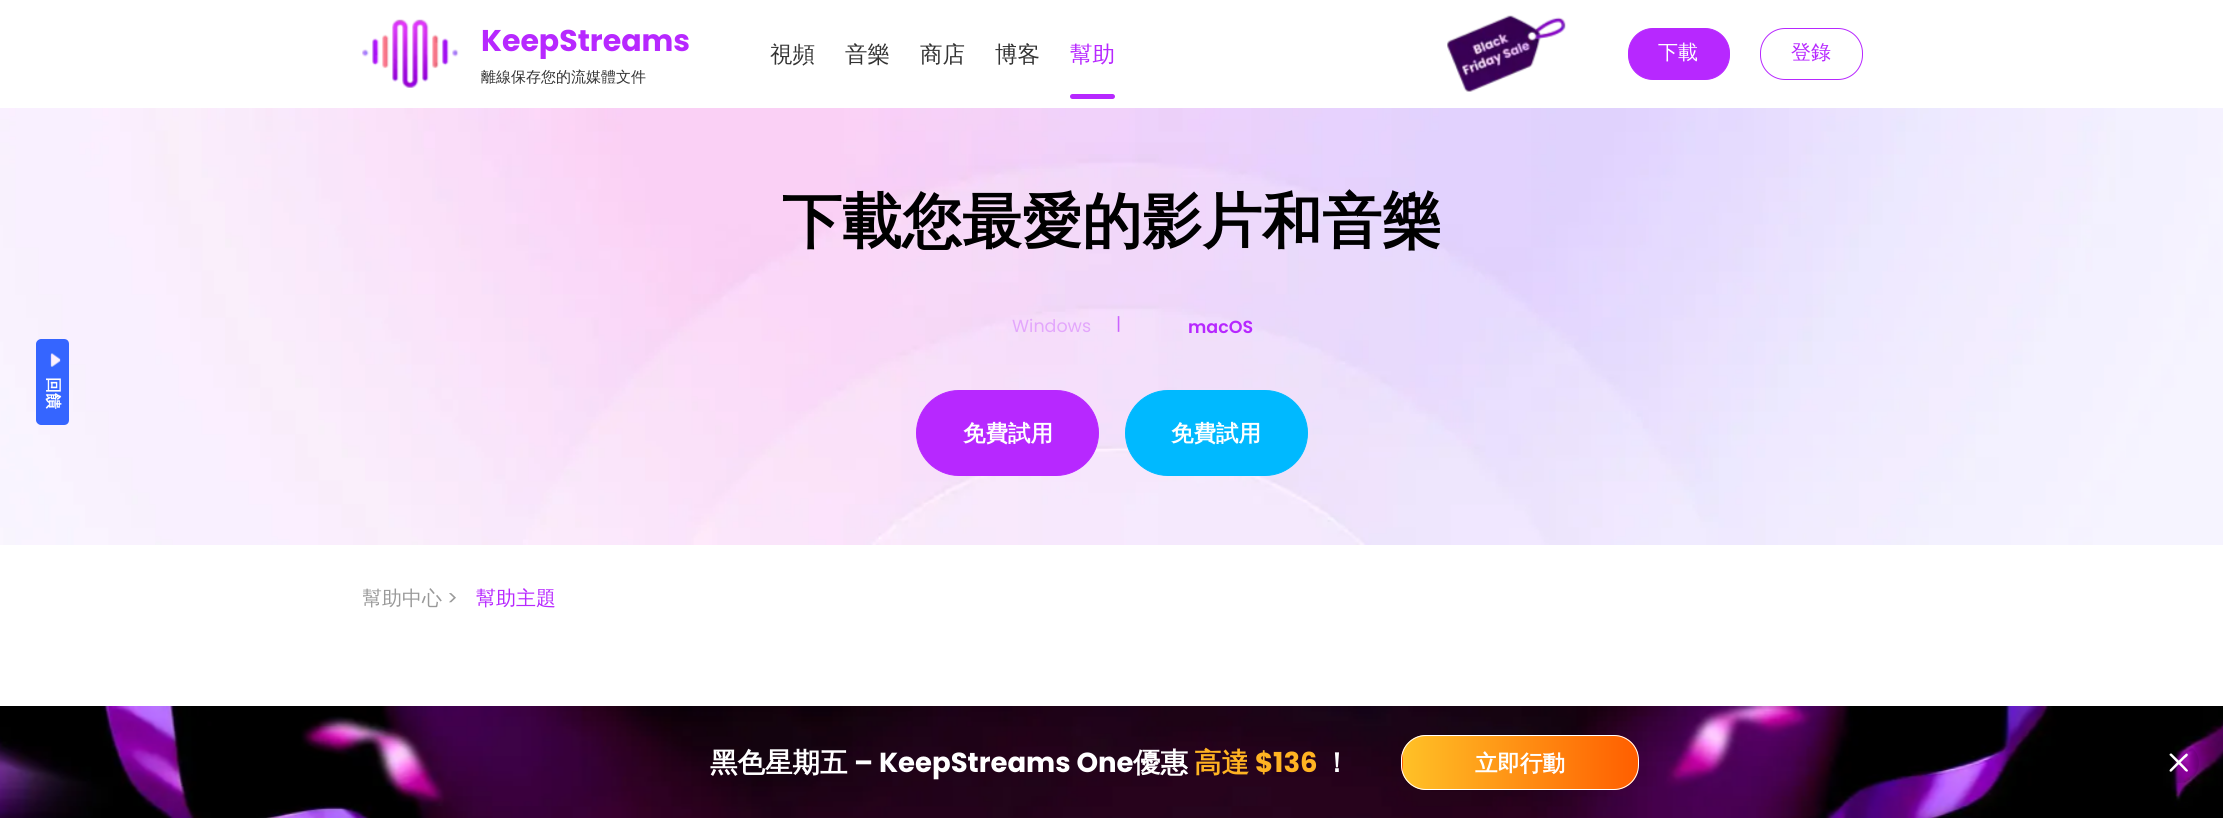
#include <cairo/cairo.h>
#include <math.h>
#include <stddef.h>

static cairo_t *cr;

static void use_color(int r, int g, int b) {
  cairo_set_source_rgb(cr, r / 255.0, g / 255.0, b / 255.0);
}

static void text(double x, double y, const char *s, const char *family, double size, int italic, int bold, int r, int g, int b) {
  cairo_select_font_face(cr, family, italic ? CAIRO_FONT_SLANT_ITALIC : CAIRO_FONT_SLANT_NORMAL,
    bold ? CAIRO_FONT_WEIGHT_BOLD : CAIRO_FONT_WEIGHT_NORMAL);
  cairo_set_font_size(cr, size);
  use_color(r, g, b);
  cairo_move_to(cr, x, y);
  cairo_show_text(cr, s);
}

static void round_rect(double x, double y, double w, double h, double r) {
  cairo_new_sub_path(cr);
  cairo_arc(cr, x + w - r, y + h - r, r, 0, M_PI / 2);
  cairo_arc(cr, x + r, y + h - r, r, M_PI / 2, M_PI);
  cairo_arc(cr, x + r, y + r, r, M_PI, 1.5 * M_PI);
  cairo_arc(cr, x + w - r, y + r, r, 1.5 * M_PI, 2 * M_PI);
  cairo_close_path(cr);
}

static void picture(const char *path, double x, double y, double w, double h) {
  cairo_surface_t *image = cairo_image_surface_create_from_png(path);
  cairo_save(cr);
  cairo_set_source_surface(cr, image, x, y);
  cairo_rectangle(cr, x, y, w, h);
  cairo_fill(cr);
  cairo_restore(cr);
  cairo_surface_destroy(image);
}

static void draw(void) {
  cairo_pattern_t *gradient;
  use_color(255, 255, 255);
  cairo_paint(cr);
  picture("img_01.png", 362, 19, 97, 69);
  use_color(183, 40, 255);
  round_rect(1070, 94, 45, 5, 2.5);
  cairo_fill(cr);
  picture("img_02.png", 1447, 15, 119, 77);
  round_rect(1628.5, 28.5, 101, 51, 24.5);
  cairo_fill_preserve(cr);
  cairo_set_line_width(cr, 1);
  cairo_stroke(cr);
  round_rect(1760.5, 28.5, 102, 51, 24.5);
  cairo_stroke(cr);
  picture("img_03.png", 0, 706, 2223, 112);
  cairo_save(cr);
  round_rect(1401, 735, 238, 55, 25);
  cairo_clip(cr);
  gradient = cairo_pattern_create_linear(1168, 763, 1403, 763);
  cairo_pattern_add_color_stop_rgba(gradient, 0, 1, 0.757, 0.153, 1);
  cairo_pattern_add_color_stop_rgba(gradient, 1, 1, 0.369, 0, 1);
  cairo_set_source(cr, gradient);
  cairo_pattern_destroy(gradient);
  cairo_rectangle(cr, 1401, 750, 2, 25);
  cairo_fill(cr);
  gradient = cairo_pattern_create_linear(1403, 763, 1638, 763);
  cairo_pattern_add_color_stop_rgba(gradient, 0, 1, 0.757, 0.153, 1);
  cairo_pattern_add_color_stop_rgba(gradient, 1, 1, 0.369, 0, 1);
  cairo_set_source(cr, gradient);
  cairo_pattern_destroy(gradient);
  cairo_rectangle(cr, 1403, 735, 235, 55);
  cairo_fill(cr);
  cairo_restore(cr);
  round_rect(1401.5, 735.5, 237, 54, 24.5);
  use_color(255, 255, 255);
  cairo_stroke(cr);
  cairo_set_source_rgba(cr, 0, 0, 0, 0.1);
  cairo_arc(cr, 2179, 763, 20, 0, 2 * M_PI);
  cairo_fill(cr);
  use_color(255, 255, 255);
  cairo_new_path(cr);
  cairo_move_to(cr, 2170, 769.5);
  cairo_curve_to(cr, 2172, 767.5, 2185.5, 753.5, 2186.5, 753.5);
  cairo_line_to(cr, 2187.5, 754);
  cairo_curve_to(cr, 2189, 755.5, 2185, 758, 2185, 758);
  cairo_line_to(cr, 2171.5, 771.5);
  cairo_curve_to(cr, 2170.5, 772, 2169.5, 771.5, 2169.5, 770.5);
  cairo_close_path(cr);
  cairo_fill(cr);
  cairo_new_path(cr);
  cairo_move_to(cr, 2171.5, 753.5);
  cairo_curve_to(cr, 2173.5, 755.5, 2188, 769.5, 2188, 770.5);
  cairo_line_to(cr, 2187.5, 771.5);
  cairo_curve_to(cr, 2186, 772.5, 2183.5, 769, 2183, 768.5);
  cairo_line_to(cr, 2169.5, 755);
  cairo_curve_to(cr, 2169.5, 754, 2170, 753.5, 2171, 753.5);
  cairo_close_path(cr);
  cairo_fill(cr);
  picture("img_05.png", 0, 108, 2223, 437);
  use_color(53, 101, 255);
  cairo_new_path(cr);
  cairo_move_to(cr, 69, 344);
  cairo_line_to(cr, 69, 420);
  cairo_curve_to(cr, 69, 423, 67, 425, 64, 425);
  cairo_line_to(cr, 41, 425);
  cairo_curve_to(cr, 39, 425, 36, 423, 36, 420);
  cairo_line_to(cr, 36, 344);
  cairo_curve_to(cr, 36, 341, 39, 339, 41, 339);
  cairo_line_to(cr, 64, 339);
  cairo_curve_to(cr, 67, 339, 69, 341, 69, 344);
  cairo_close_path(cr);
  cairo_fill(cr);
  picture("img_04.png", 50, 353, 11, 14);
  use_color(183, 40, 255);
  round_rect(916.5, 390.5, 182, 85, 42.5);
  cairo_fill_preserve(cr);
  cairo_stroke(cr);
  use_color(0, 185, 255);
  round_rect(1125.5, 390.5, 182, 85, 42.5);
  cairo_fill_preserve(cr);
  cairo_stroke(cr);
  text(481, 51, "KeepStreams", "Poppins", 30, 0, 1, 183, 40, 255);
  text(481, 82, "離線保存您的流媒體文件", "WenQuanYi Zen Hei Medium", 15, 0, 0, 51, 51, 51);
  text(770, 62, "視頻", "WenQuanYi Zen Hei Medium", 22.5, 0, 0, 51, 51, 51);
  text(845, 62, "音樂", "WenQuanYi Zen Hei Medium", 22.5, 0, 0, 51, 51, 51);
  text(920, 62, "商店", "WenQuanYi Zen Hei Medium", 22.5, 0, 0, 51, 51, 51);
  text(995, 62, "博客", "WenQuanYi Zen Hei Medium", 22.5, 0, 0, 51, 51, 51);
  text(1070, 62, "幫助", "WenQuanYi Zen Hei Medium", 22.5, 0, 0, 183, 40, 255);
  text(1658, 59, "下載", "WenQuanYi Zen Hei Medium", 20, 0, 0, 255, 255, 255);
  text(1791, 59, "登錄", "WenQuanYi Zen Hei Medium", 20, 0, 0, 183, 40, 255);
  text(710, 772, "黑色星期五", "WenQuanYi Zen Hei", 27.5, 0, 1, 255, 255, 255);
  text(854, 772, "– KeepStreams One", "Poppins", 27.5, 0, 1, 255, 255, 255);
  text(1133, 772, "優惠", "WenQuanYi Zen Hei", 27.5, 0, 1, 255, 255, 255);
  text(1194, 772, "高達", "WenQuanYi Zen Hei", 27.5, 0, 1, 255, 179, 34);
  text(1255, 772, "$136", "Poppins", 27.5, 0, 1, 255, 179, 34);
  text(1323, 772, "！", "WenQuanYi Zen Hei", 27.5, 0, 1, 255, 255, 255);
  text(1475, 771, "立即行動", "WenQuanYi Zen Hei", 22.5, 0, 1, 255, 255, 255);
  cairo_save(cr);
  cairo_translate(cr, 48, 377);
  cairo_rotate(cr, 90 * M_PI / 180);
  text(0, 0, "回饋", "WenQuanYi Zen Hei", 16, 0, 1, 255, 255, 255);
  cairo_restore(cr);
  text(782, 242, "下載您最愛的影片和音樂", "WenQuanYi Zen Hei", 60, 0, 1, 0, 0, 0);
  text(1012, 332, "Windows", "Poppins", 17.5, 0, 0, 227, 167, 252);
  text(1116, 330, "|", "Poppins", 17.5, 0, 0, 203, 99, 254);
  text(1188, 333, "macOS", "Poppins SemiBold", 17.5, 0, 0, 183, 40, 255);
  text(963, 441, "免費試用", "WenQuanYi Zen Hei", 22.5, 0, 1, 255, 255, 255);
  text(1171, 441, "免費試用", "WenQuanYi Zen Hei", 22.5, 0, 1, 255, 255, 255);
  cairo_save(cr);
  cairo_rectangle(cr, 363, 545, 1500, 121);
  cairo_clip(cr);
  text(362, 605, "幫助中心", "WenQuanYi Zen Hei Medium", 20, 0, 0, 153, 153, 153);
  cairo_restore(cr);
  text(447, 605, ">", "Poppins", 20, 0, 0, 153, 153, 153);
  text(476, 605, "幫助主題", "WenQuanYi Zen Hei Medium", 20, 0, 0, 183, 40, 255);
}

int main(void) {
  cairo_surface_t *surface = cairo_image_surface_create(CAIRO_FORMAT_RGB24, 2223, 818);
  cr = cairo_create(surface);
  cairo_font_options_t *options = cairo_font_options_create();
  cairo_font_options_set_hint_metrics(options, CAIRO_HINT_METRICS_OFF);
  cairo_font_options_set_hint_style(options, CAIRO_HINT_STYLE_NONE);
  cairo_set_font_options(cr, options);
  cairo_set_miter_limit(cr, 4);
  draw();
  cairo_surface_write_to_png(surface, "out.png");
  cairo_font_options_destroy(options);
  cairo_destroy(cr);
  cairo_surface_destroy(surface);
  return 0;
}
